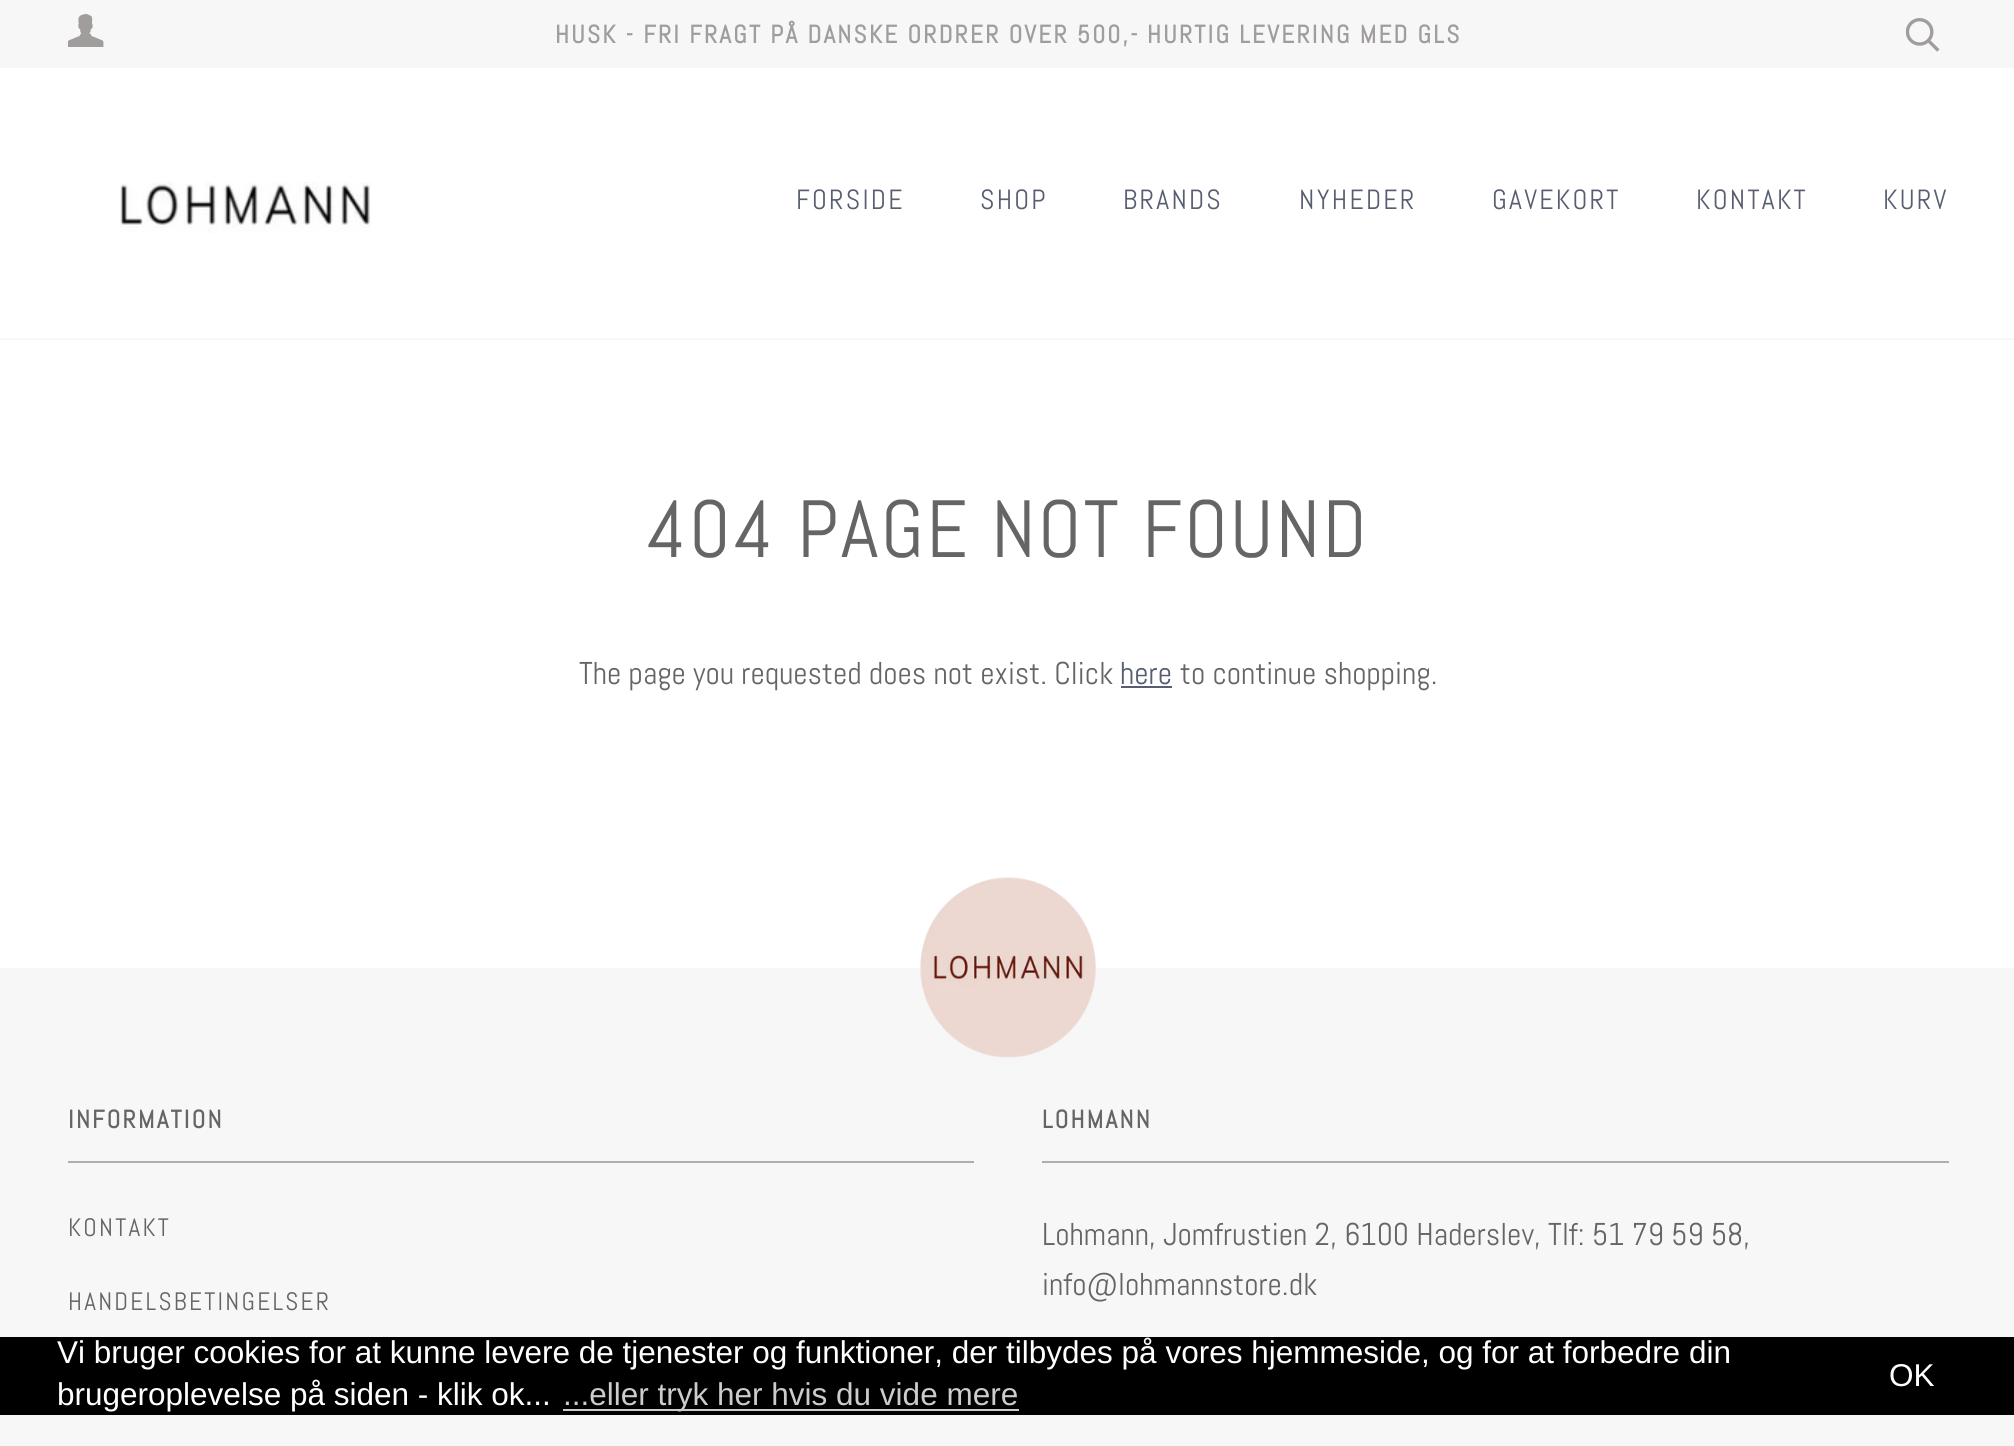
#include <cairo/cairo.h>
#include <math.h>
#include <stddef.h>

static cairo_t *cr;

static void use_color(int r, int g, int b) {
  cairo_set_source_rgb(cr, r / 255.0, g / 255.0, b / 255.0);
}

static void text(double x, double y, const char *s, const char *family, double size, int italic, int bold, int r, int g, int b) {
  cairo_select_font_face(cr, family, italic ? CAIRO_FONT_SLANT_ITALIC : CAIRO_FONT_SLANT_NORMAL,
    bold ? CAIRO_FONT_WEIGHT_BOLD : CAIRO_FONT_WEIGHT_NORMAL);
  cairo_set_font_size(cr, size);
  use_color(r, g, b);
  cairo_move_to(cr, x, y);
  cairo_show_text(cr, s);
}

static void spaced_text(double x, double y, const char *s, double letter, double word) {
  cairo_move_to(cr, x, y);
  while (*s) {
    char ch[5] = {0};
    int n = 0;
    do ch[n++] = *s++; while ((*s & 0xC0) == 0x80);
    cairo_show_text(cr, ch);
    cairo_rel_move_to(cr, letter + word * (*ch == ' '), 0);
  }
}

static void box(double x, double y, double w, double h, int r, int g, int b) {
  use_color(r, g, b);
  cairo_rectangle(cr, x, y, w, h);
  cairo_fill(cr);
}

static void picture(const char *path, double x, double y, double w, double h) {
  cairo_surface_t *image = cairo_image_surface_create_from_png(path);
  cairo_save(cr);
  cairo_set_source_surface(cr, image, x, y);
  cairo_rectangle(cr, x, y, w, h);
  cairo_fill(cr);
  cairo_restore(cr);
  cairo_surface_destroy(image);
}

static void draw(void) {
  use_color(255, 255, 255);
  cairo_paint(cr);
  box(0, 0, 2014, 68, 247, 247, 247);
  picture("img_01.png", 68, 14, 36, 33);
  picture("img_02.png", 1906, 18, 34, 34);
  box(0, 338, 2014, 2, 247, 247, 247);
  picture("img_03.png", 120, 182, 251, 51);
  box(1121, 686, 51, 2, 88, 94, 113);
  box(0, 968, 2014, 478, 247, 247, 247);
  picture("img_04.png", 920, 877, 176, 181);
  box(68, 1161, 906, 2, 174, 174, 174);
  box(1042, 1161, 907, 2, 174, 174, 174);
  box(0, 1337, 2014, 78, 0, 0, 0);
  box(563, 1409, 456, 2, 204, 204, 204);
  cairo_select_font_face(cr, "Abel", CAIRO_FONT_SLANT_NORMAL, CAIRO_FONT_WEIGHT_BOLD);
  cairo_set_font_size(cr, 25.2);
  use_color(161, 157, 157);
  spaced_text(555, 43, "HUSK - FRI FRAGT PÅ DANSKE ORDRER OVER 500,-", 2.25, 0);
  spaced_text(1147, 43, "HURTIG LEVERING MED GLS", 2.25, 0);
  cairo_select_font_face(cr, "Abel", CAIRO_FONT_SLANT_NORMAL, CAIRO_FONT_WEIGHT_NORMAL);
  cairo_set_font_size(cr, 27.75);
  use_color(88, 94, 113);
  spaced_text(796, 209, "FORSIDE", 2.25, 0);
  spaced_text(980, 209, "SHOP", 2.25, 0);
  spaced_text(1123, 209, "BRANDS", 2.25, 0);
  spaced_text(1299, 209, "NYHEDER", 2.25, 0);
  spaced_text(1492, 209, "GAVEKORT", 2.25, 0);
  spaced_text(1696, 209, "KONTAKT", 2.25, 0);
  spaced_text(1883, 209, "KURV", 2.25, 0);
  cairo_set_font_size(cr, 81);
  use_color(101, 101, 101);
  spaced_text(646, 557, "404 PAGE NOT FOUND", 2.25, 0);
  text(579, 684, "The page you requested does not exist. Click", "Abel", 31.5, 0, 0, 101, 101, 101);
  text(1120, 684, "here", "Abel", 31.5, 0, 0, 88, 94, 113);
  text(1180, 684, "to continue shopping.", "Abel", 31.5, 0, 0, 101, 101, 101);
  cairo_select_font_face(cr, "Abel", CAIRO_FONT_SLANT_NORMAL, CAIRO_FONT_WEIGHT_BOLD);
  cairo_set_font_size(cr, 25.2);
  spaced_text(68, 1128, "INFORMATION", 2.25, 0);
  cairo_select_font_face(cr, "Abel", CAIRO_FONT_SLANT_NORMAL, CAIRO_FONT_WEIGHT_NORMAL);
  spaced_text(68, 1236, "KONTAKT", 2.25, 0);
  spaced_text(68, 1310, "HANDELSBETINGELSER", 2.25, 0);
  cairo_select_font_face(cr, "Abel", CAIRO_FONT_SLANT_NORMAL, CAIRO_FONT_WEIGHT_BOLD);
  spaced_text(1042, 1128, "LOHMANN", 2.25, 0);
  text(1042, 1245, "Lohmann, Jomfrustien 2, 6100 Haderslev, Tlf: 51 79 59 58,", "Abel", 31.5, 0, 0, 101, 101, 101);
  text(1042, 1295, "info@lohmannstore.dk", "Abel", 31.5, 0, 0, 101, 101, 101);
  text(57, 1363, "Vi bruger cookies for at kunne levere de tjenester og funktioner, der tilbydes på vores hjemmeside, og for at forbedre din", "Liberation Sans", 31.5, 0, 0, 255, 255, 255);
  text(57, 1405, "brugeroplevelse på siden - klik ok...", "Liberation Sans", 31.5, 0, 0, 255, 255, 255);
  text(563, 1405, "...eller tryk her hvis du vide mere", "Liberation Sans", 31.5, 0, 0, 204, 204, 204);
  text(1889, 1386, "OK", "Liberation Sans", 31.5, 0, 0, 255, 255, 255);
}

int main(void) {
  cairo_surface_t *surface = cairo_image_surface_create(CAIRO_FORMAT_RGB24, 2014, 1446);
  cr = cairo_create(surface);
  cairo_font_options_t *options = cairo_font_options_create();
  cairo_font_options_set_hint_metrics(options, CAIRO_HINT_METRICS_OFF);
  cairo_font_options_set_hint_style(options, CAIRO_HINT_STYLE_NONE);
  cairo_set_font_options(cr, options);
  cairo_set_miter_limit(cr, 4);
  draw();
  cairo_surface_write_to_png(surface, "out.png");
  cairo_font_options_destroy(options);
  cairo_destroy(cr);
  cairo_surface_destroy(surface);
  return 0;
}
